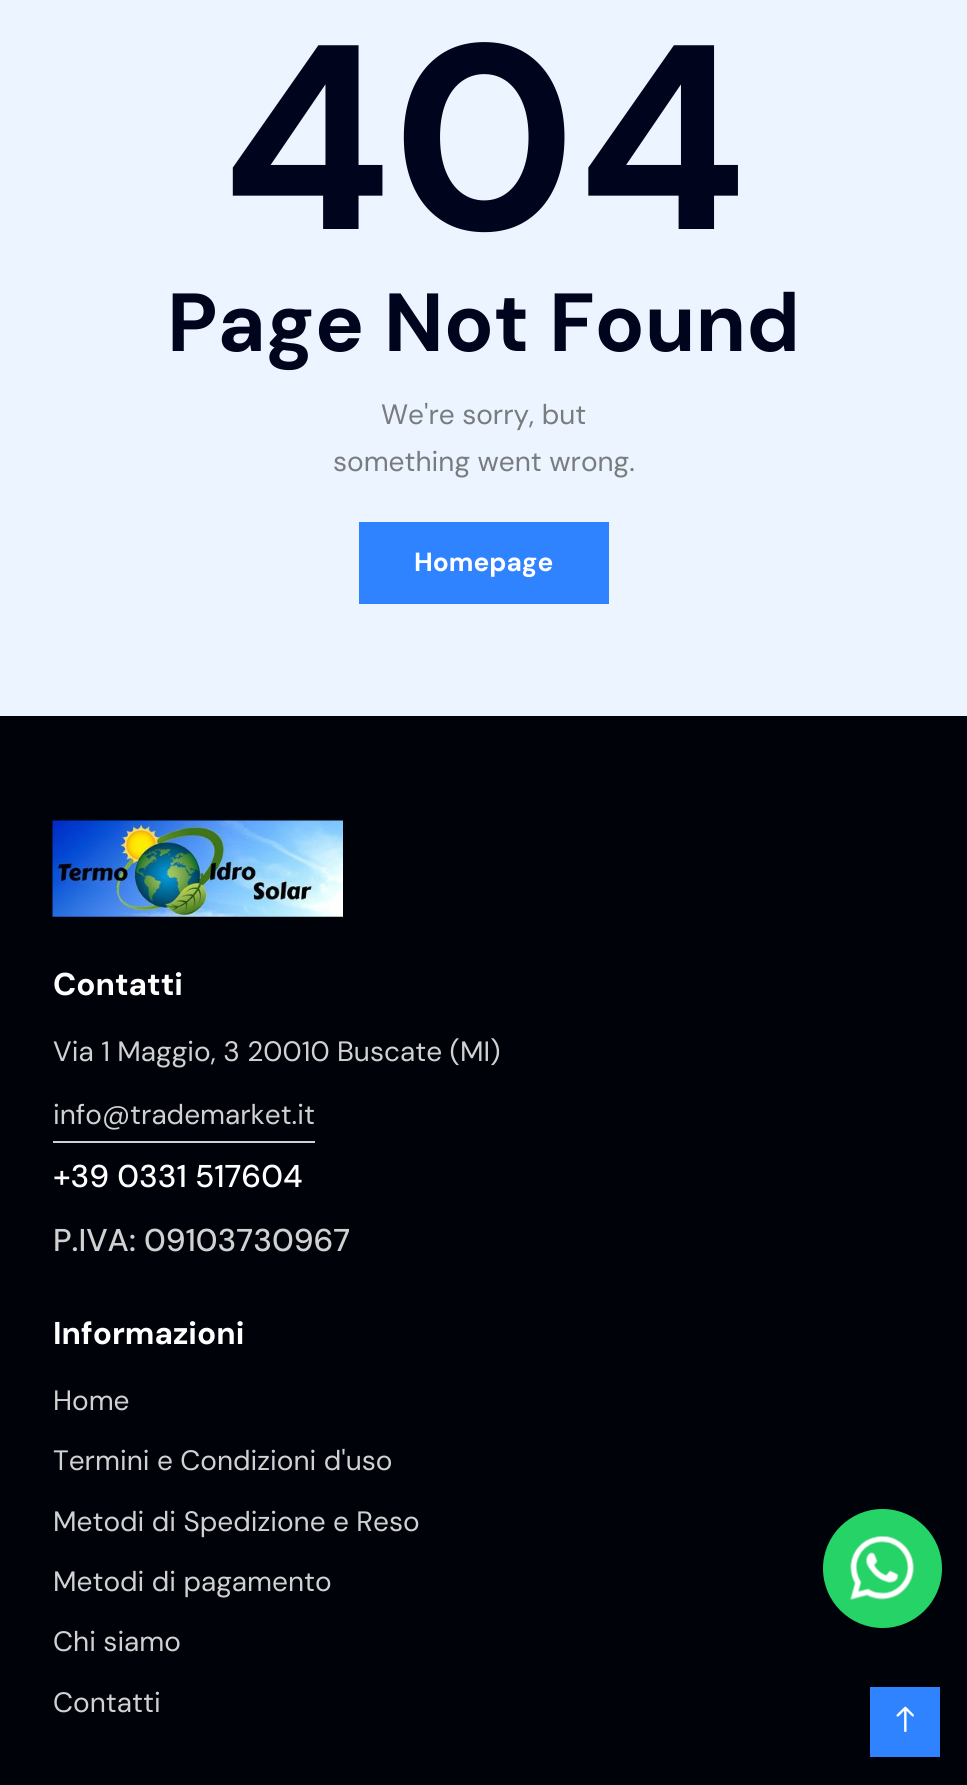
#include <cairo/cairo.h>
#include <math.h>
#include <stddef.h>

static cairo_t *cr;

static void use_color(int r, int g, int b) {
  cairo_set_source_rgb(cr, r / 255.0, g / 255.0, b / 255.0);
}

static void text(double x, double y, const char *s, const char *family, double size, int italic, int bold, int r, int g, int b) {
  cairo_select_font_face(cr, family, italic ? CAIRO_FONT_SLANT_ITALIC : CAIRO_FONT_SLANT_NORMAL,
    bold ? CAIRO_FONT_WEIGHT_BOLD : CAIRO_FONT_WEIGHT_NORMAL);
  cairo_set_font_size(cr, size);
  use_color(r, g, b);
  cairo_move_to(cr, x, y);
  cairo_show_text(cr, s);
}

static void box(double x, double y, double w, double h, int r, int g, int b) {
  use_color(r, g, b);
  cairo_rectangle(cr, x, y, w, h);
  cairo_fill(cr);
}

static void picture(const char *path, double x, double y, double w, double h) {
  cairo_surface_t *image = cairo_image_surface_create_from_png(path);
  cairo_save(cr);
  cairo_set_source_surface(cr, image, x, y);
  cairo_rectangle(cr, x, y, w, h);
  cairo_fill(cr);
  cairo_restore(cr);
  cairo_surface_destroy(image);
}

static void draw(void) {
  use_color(235, 244, 255);
  cairo_paint(cr);
  box(359, 522, 250, 82, 48, 131, 255);
  box(0, 716, 967, 1069, 0, 2, 10);
  picture("img_01.png", 52, 820, 291, 97);
  box(53, 1141, 262, 2, 209, 209, 209);
  use_color(37, 211, 102);
  cairo_arc(cr, 882.5, 1568.5, 59.5, 0, 2 * M_PI);
  cairo_fill(cr);
  picture("img_02.png", 850, 1536, 64, 64);
  box(870, 1687, 70, 70, 48, 131, 255);
  picture("img_03.png", 896, 1706, 18, 27);
  text(221, 229, "404", "DM Sans", 262.5, 0, 1, 1, 4, 29);
  text(167, 351, "Page Not Found", "DM Sans", 82.25, 0, 1, 1, 4, 29);
  text(381, 424, "We're sorry, but", "DM Sans", 28, 0, 0, 121, 124, 127);
  text(333, 471, "something went wrong.", "DM Sans", 28, 0, 0, 121, 124, 127);
  text(414, 571, "Homepage", "DM Sans", 26.25, 0, 1, 255, 255, 255);
  text(53, 995, "Contatti", "DM Sans", 31.5, 0, 1, 255, 255, 255);
  text(53, 1061, "Via 1 Maggio, 3 20010 Buscate (MI)", "DM Sans", 28, 0, 0, 209, 209, 209);
  text(53, 1124, "info@trademarket.it", "DM Sans", 28, 0, 0, 209, 209, 209);
  text(53, 1187, "+39 0331 517604", "DM Sans Medium", 31.5, 0, 0, 255, 255, 255);
  text(53, 1251, "P.IVA: 09103730967", "DM Sans Medium", 31.5, 0, 0, 209, 209, 209);
  text(53, 1344, "Informazioni", "DM Sans", 31.5, 0, 1, 255, 255, 255);
  text(53, 1410, "Home", "DM Sans", 28, 0, 0, 209, 209, 209);
  text(53, 1470, "Termini e Condizioni d'uso", "DM Sans", 28, 0, 0, 209, 209, 209);
  text(53, 1531, "Metodi di Spedizione e Reso", "DM Sans", 28, 0, 0, 209, 209, 209);
  text(53, 1591, "Metodi di pagamento", "DM Sans", 28, 0, 0, 209, 209, 209);
  text(53, 1651, "Chi siamo", "DM Sans", 28, 0, 0, 209, 209, 209);
  text(53, 1712, "Contatti", "DM Sans", 28, 0, 0, 209, 209, 209);
}

int main(void) {
  cairo_surface_t *surface = cairo_image_surface_create(CAIRO_FORMAT_RGB24, 967, 1785);
  cr = cairo_create(surface);
  cairo_font_options_t *options = cairo_font_options_create();
  cairo_font_options_set_hint_metrics(options, CAIRO_HINT_METRICS_OFF);
  cairo_font_options_set_hint_style(options, CAIRO_HINT_STYLE_NONE);
  cairo_set_font_options(cr, options);
  cairo_set_miter_limit(cr, 4);
  draw();
  cairo_surface_write_to_png(surface, "out.png");
  cairo_font_options_destroy(options);
  cairo_destroy(cr);
  cairo_surface_destroy(surface);
  return 0;
}
